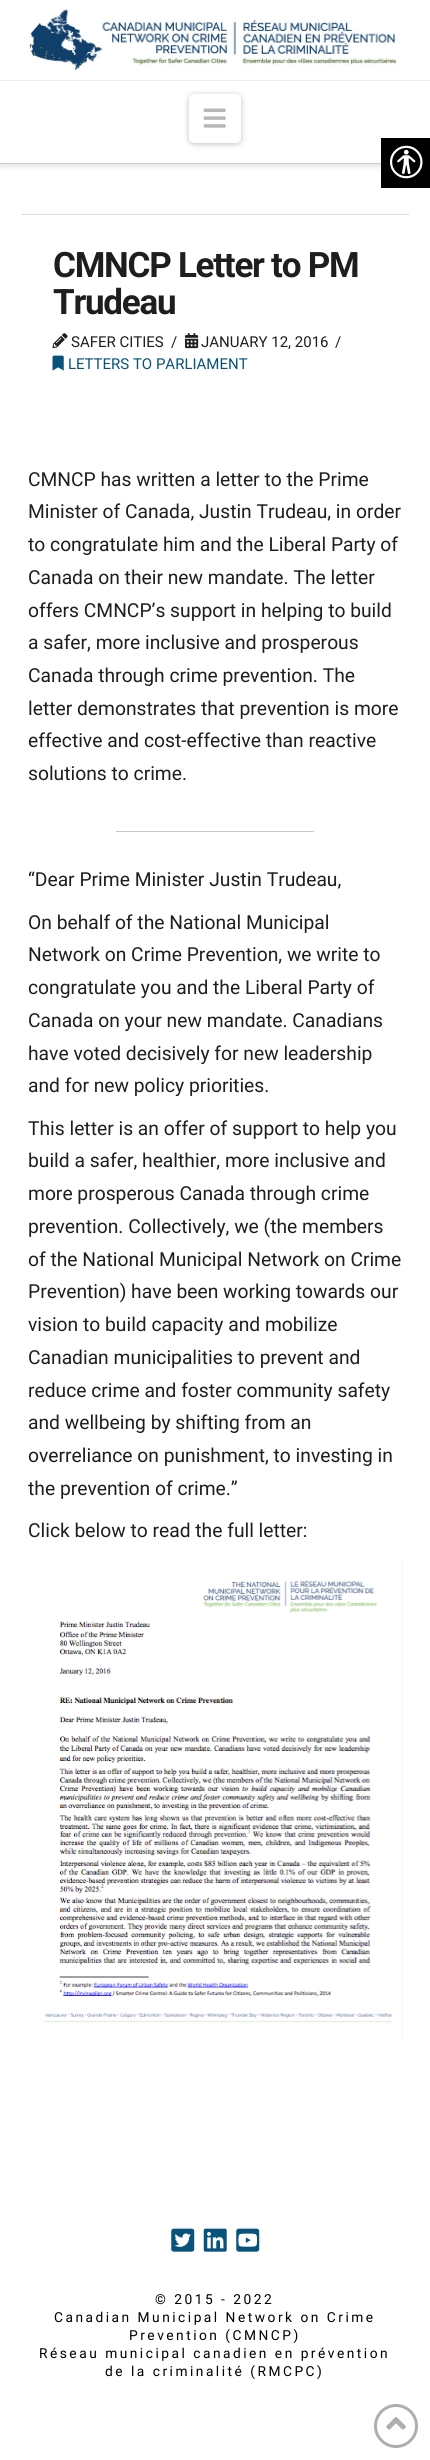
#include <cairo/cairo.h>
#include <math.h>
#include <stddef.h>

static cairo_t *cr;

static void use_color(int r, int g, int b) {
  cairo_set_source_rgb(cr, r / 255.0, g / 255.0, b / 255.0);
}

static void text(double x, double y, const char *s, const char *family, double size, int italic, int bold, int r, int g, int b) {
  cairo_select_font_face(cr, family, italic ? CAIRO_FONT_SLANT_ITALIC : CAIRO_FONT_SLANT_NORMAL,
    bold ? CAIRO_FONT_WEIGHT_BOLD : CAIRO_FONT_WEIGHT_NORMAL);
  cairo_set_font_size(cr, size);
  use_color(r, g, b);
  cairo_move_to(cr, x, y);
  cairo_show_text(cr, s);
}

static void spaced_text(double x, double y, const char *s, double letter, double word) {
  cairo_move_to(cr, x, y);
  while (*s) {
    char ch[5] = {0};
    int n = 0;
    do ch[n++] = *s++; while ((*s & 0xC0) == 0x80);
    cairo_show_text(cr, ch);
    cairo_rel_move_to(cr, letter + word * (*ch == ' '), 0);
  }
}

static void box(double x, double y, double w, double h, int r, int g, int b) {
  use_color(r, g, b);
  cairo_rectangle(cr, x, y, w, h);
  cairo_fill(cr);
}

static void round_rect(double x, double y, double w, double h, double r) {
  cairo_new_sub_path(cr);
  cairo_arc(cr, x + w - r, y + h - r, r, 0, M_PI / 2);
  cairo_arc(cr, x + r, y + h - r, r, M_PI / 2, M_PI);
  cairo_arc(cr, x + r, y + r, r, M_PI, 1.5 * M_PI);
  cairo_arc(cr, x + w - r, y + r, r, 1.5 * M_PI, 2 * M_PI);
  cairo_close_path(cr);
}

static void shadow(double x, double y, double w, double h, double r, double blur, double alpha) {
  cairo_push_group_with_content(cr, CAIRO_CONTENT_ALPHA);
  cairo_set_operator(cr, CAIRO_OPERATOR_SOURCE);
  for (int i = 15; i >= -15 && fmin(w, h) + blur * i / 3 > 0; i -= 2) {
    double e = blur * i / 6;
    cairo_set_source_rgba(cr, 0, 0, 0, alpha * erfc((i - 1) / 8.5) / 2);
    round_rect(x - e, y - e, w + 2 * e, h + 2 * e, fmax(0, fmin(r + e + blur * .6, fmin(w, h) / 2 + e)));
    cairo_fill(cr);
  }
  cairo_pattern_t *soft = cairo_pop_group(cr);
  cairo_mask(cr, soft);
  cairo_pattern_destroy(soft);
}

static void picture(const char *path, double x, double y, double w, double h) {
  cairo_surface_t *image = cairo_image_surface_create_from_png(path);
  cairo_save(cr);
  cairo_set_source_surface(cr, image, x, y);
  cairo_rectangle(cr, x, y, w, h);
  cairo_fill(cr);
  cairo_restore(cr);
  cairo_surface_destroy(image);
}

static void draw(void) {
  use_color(255, 255, 255);
  cairo_paint(cr);
  box(0, 80, 430, 1, 242, 242, 242);
  use_color(0, 0, 0);
  shadow(0, 84, 430, 82, 0, 3, 0.13);
  box(0, 81, 430, 82, 255, 255, 255);
  box(381, 138, 49, 50, 0, 0, 0);
  picture("img_01.png", 390, 145, 33, 34);
  picture("img_02.png", 29, 8, 368, 63);
  box(0, 163, 381, 1, 204, 204, 204);
  use_color(0, 0, 0);
  shadow(189, 95, 52, 49, 5, 3, 0.25);
  use_color(255, 255, 255);
  round_rect(189, 94, 52, 49, 5);
  cairo_fill(cr);
  picture("img_03.png", 203, 108, 23, 20);
  box(21, 214, 388, 1, 221, 221, 221);
  picture("img_04.png", 52, 333, 16, 16);
  picture("img_05.png", 185, 333, 14, 16);
  picture("img_06.png", 52, 355, 12, 16);
  box(116, 831, 198, 1, 199, 199, 199);
  picture("img_07.png", 44, 1558, 359, 482);
  picture("img_08.png", 171, 2228, 24, 24);
  picture("img_09.png", 203, 2228, 24, 24);
  picture("img_10.png", 236, 2228, 24, 24);
  cairo_arc(cr, 396, 2426, 20.5, 0, 2 * M_PI);
  use_color(174, 174, 174);
  cairo_set_line_width(cr, 3);
  cairo_stroke(cr);
  picture("img_11.png", 386, 2417, 20, 13);
  cairo_select_font_face(cr, "Roboto", CAIRO_FONT_SLANT_NORMAL, CAIRO_FONT_WEIGHT_BOLD);
  cairo_set_font_size(cr, 35);
  use_color(32, 29, 30);
  spaced_text(53, 277, "CMNCP Letter to PM", -1.25, 0);
  spaced_text(53, 314, "Trudeau", -1.25, 0);
  text(71, 347, "SAFER CITIES", "Roboto", 15, 0, 0, 32, 29, 30);
  text(171, 347, "/", "Roboto", 15, 0, 0, 32, 29, 30);
  text(201, 347, "JANUARY 12, 2016", "Roboto", 15, 0, 0, 32, 29, 30);
  text(335, 347, "/", "Roboto", 15, 0, 0, 32, 29, 30);
  text(68, 369, "LETTERS TO PARLIAMENT", "Roboto", 15, 0, 0, 8, 83, 124);
  text(28, 486, "CMNCP has written a letter to the Prime", "Roboto", 19.25, 0, 0, 32, 29, 30);
  text(28, 518, "Minister of Canada, Justin Trudeau, in order", "Roboto", 19.25, 0, 0, 32, 29, 30);
  text(28, 551, "to congratulate him and the Liberal Party of", "Roboto", 19.25, 0, 0, 32, 29, 30);
  text(28, 584, "Canada on their new mandate. The letter", "Roboto", 19.25, 0, 0, 32, 29, 30);
  text(28, 617, "offers CMNCP’s support in helping to build", "Roboto", 19.25, 0, 0, 32, 29, 30);
  text(28, 649, "a safer, more inclusive and prosperous", "Roboto", 19.25, 0, 0, 32, 29, 30);
  text(28, 682, "Canada through crime prevention. The", "Roboto", 19.25, 0, 0, 32, 29, 30);
  text(28, 715, "letter demonstrates that prevention is more", "Roboto", 19.25, 0, 0, 32, 29, 30);
  text(28, 747, "effective and cost-effective than reactive", "Roboto", 19.25, 0, 0, 32, 29, 30);
  text(28, 780, "solutions to crime.", "Roboto", 19.25, 0, 0, 32, 29, 30);
  text(28, 886, "“Dear Prime Minister Justin Trudeau,", "Roboto", 19.25, 0, 0, 32, 29, 30);
  text(28, 929, "On behalf of the National Municipal", "Roboto", 19.25, 0, 0, 32, 29, 30);
  text(28, 961, "Network on Crime Prevention, we write to", "Roboto", 19.25, 0, 0, 32, 29, 30);
  text(28, 994, "congratulate you and the Liberal Party of", "Roboto", 19.25, 0, 0, 32, 29, 30);
  text(28, 1027, "Canada on your new mandate. Canadians", "Roboto", 19.25, 0, 0, 32, 29, 30);
  text(28, 1060, "have voted decisively for new leadership", "Roboto", 19.25, 0, 0, 32, 29, 30);
  text(28, 1092, "and for new policy priorities.", "Roboto", 19.25, 0, 0, 32, 29, 30);
  text(28, 1135, "This letter is an offer of support to help you", "Roboto", 19.25, 0, 0, 32, 29, 30);
  text(28, 1167, "build a safer, healthier, more inclusive and", "Roboto", 19.25, 0, 0, 32, 29, 30);
  text(28, 1200, "more prosperous Canada through crime", "Roboto", 19.25, 0, 0, 32, 29, 30);
  text(28, 1233, "prevention. Collectively, we (the members", "Roboto", 19.25, 0, 0, 32, 29, 30);
  text(28, 1266, "of the National Municipal Network on Crime", "Roboto", 19.25, 0, 0, 32, 29, 30);
  text(28, 1298, "Prevention) have been working towards our", "Roboto", 19.25, 0, 0, 32, 29, 30);
  text(28, 1331, "vision to build capacity and mobilize", "Roboto", 19.25, 0, 0, 32, 29, 30);
  text(28, 1364, "Canadian municipalities to prevent and", "Roboto", 19.25, 0, 0, 32, 29, 30);
  text(28, 1397, "reduce crime and foster community safety", "Roboto", 19.25, 0, 0, 32, 29, 30);
  text(28, 1429, "and wellbeing by shifting from an", "Roboto", 19.25, 0, 0, 32, 29, 30);
  text(28, 1462, "overreliance on punishment, to investing in", "Roboto", 19.25, 0, 0, 32, 29, 30);
  text(28, 1495, "the prevention of crime.”", "Roboto", 19.25, 0, 0, 32, 29, 30);
  text(28, 1537, "Click below to read the full letter:", "Roboto", 19.25, 0, 0, 32, 29, 30);
  cairo_set_font_size(cr, 13.75);
  use_color(0, 0, 0);
  spaced_text(155, 2304, "© 2015 - 2022", 2.5, 0);
  spaced_text(54, 2322, "Canadian Municipal Network on Crime", 2.5, 0);
  spaced_text(129, 2340, "Prevention (CMNCP)", 2.5, 0);
  spaced_text(39, 2358, "Réseau municipal canadien en prévention", 2.5, 0);
  spaced_text(105, 2376, "de la criminalité (RMCPC)", 2.5, 0);
}

int main(void) {
  cairo_surface_t *surface = cairo_image_surface_create(CAIRO_FORMAT_RGB24, 430, 2460);
  cr = cairo_create(surface);
  cairo_font_options_t *options = cairo_font_options_create();
  cairo_font_options_set_hint_metrics(options, CAIRO_HINT_METRICS_OFF);
  cairo_font_options_set_hint_style(options, CAIRO_HINT_STYLE_NONE);
  cairo_set_font_options(cr, options);
  cairo_set_miter_limit(cr, 4);
  draw();
  cairo_surface_write_to_png(surface, "out.png");
  cairo_font_options_destroy(options);
  cairo_destroy(cr);
  cairo_surface_destroy(surface);
  return 0;
}
